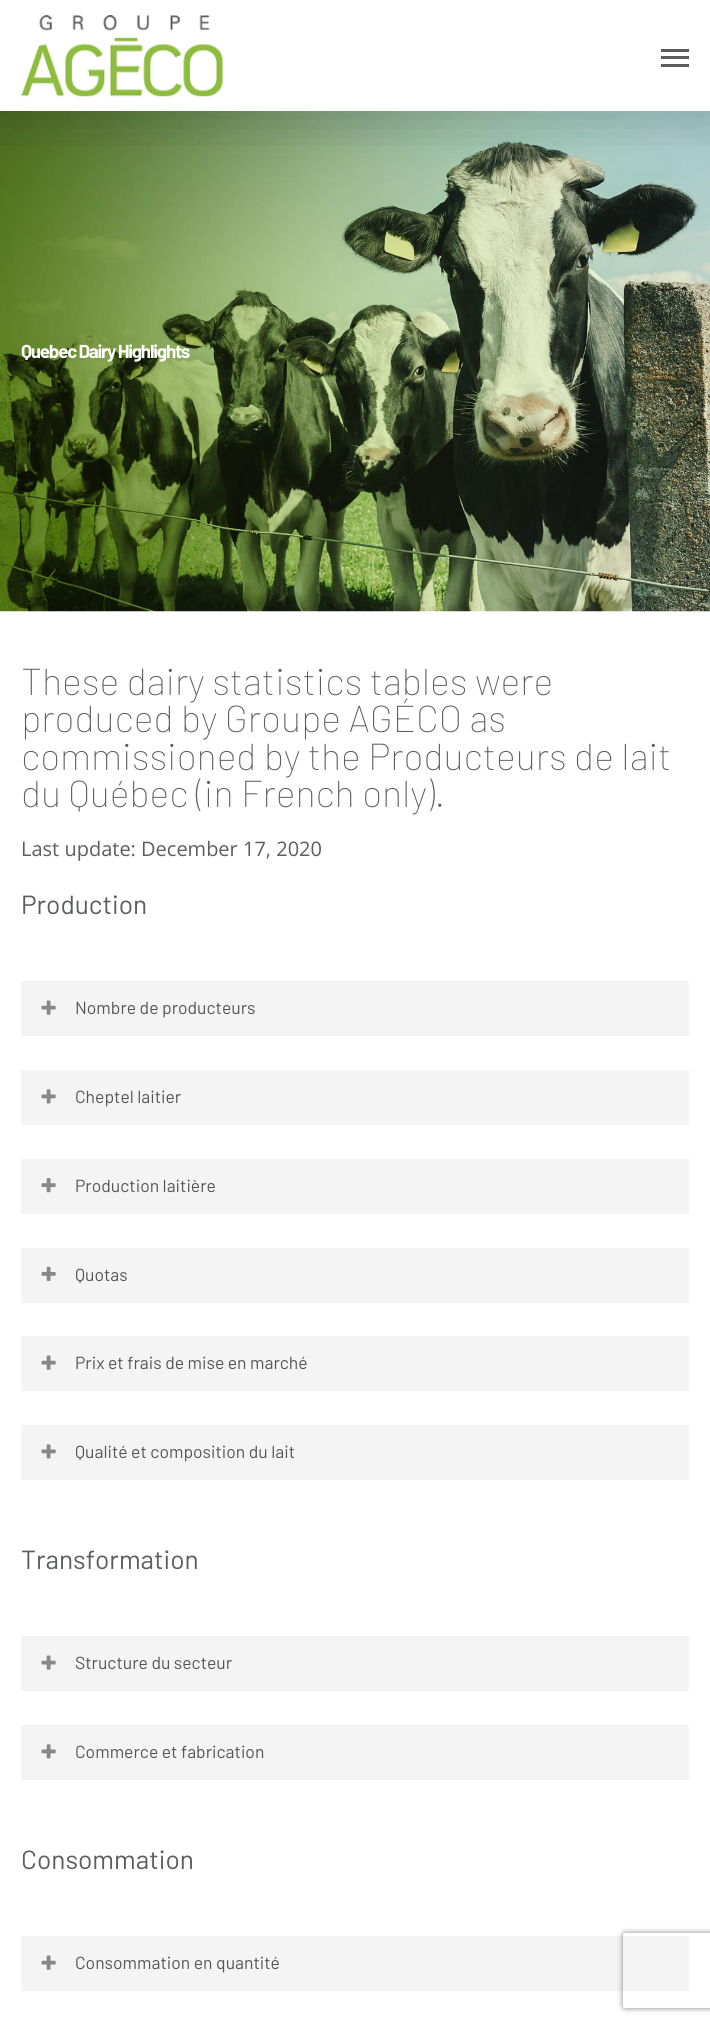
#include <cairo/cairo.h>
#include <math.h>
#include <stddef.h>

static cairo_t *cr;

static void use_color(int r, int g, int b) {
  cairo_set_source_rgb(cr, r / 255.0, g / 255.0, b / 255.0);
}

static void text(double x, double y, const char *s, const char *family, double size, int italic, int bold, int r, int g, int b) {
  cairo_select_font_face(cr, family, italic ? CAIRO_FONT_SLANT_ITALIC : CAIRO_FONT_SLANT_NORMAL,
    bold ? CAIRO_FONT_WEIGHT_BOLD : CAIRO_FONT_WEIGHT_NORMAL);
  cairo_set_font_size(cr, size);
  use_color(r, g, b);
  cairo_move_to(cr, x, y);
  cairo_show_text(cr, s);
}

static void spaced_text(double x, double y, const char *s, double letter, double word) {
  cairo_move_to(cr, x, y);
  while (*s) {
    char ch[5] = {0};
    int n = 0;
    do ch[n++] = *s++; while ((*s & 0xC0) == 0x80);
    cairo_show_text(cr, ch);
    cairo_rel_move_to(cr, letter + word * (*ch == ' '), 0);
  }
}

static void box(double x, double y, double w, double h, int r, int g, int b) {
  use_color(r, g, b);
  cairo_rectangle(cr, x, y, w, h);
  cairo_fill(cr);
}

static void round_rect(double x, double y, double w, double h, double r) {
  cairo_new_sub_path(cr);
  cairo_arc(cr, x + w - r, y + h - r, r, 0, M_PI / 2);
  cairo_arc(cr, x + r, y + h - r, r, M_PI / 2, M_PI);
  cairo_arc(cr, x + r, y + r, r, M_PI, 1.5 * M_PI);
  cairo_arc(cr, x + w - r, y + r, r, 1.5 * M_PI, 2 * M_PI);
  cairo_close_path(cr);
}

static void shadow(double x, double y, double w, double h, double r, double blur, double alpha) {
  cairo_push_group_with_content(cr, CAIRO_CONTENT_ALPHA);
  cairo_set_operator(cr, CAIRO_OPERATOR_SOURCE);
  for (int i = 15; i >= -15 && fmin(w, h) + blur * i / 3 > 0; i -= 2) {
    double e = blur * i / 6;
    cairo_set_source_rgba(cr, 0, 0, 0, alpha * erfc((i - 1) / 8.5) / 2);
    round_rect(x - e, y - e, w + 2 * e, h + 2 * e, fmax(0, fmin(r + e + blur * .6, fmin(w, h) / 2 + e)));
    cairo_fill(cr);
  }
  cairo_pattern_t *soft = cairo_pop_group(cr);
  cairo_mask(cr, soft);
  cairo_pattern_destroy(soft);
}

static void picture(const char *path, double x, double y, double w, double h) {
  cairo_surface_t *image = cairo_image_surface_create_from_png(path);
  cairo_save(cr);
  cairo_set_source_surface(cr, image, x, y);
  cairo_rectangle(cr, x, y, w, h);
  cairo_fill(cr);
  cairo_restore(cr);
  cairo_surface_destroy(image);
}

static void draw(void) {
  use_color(255, 255, 255);
  cairo_paint(cr);
  picture("img_02.png", 0, 111, 710, 501);
  cairo_save(cr);
  cairo_rectangle(cr, 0, 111, 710, 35);
  cairo_clip(cr);
  use_color(0, 0, 0);
  shadow(0, 4, 710, 111, 0, 28, 0.15);
  cairo_restore(cr);
  picture("img_01.png", 21, 15, 202, 82);
  box(661, 49, 28, 3, 92, 93, 94);
  box(661, 64, 28, 3, 92, 93, 94);
  box(661, 56, 28, 3, 92, 93, 94);
  box(21, 981, 668, 55, 244, 244, 244);
  picture("img_03.png", 41, 1000, 15, 15);
  box(21, 1070, 668, 55, 244, 244, 244);
  picture("img_04.png", 41, 1089, 15, 15);
  box(21, 1159, 668, 55, 244, 244, 244);
  picture("img_05.png", 41, 1178, 15, 15);
  box(21, 1248, 668, 55, 244, 244, 244);
  picture("img_06.png", 41, 1266, 15, 15);
  box(21, 1336, 668, 55, 244, 244, 244);
  picture("img_03.png", 41, 1355, 15, 15);
  box(21, 1425, 668, 55, 244, 244, 244);
  picture("img_04.png", 41, 1444, 15, 15);
  box(21, 1636, 668, 55, 244, 244, 244);
  picture("img_03.png", 41, 1655, 15, 15);
  box(21, 1725, 668, 55, 244, 244, 244);
  picture("img_04.png", 41, 1744, 15, 15);
  box(21, 1936, 668, 55, 244, 244, 244);
  picture("img_03.png", 41, 1955, 15, 15);
  cairo_save(cr);
  cairo_set_fill_rule(cr, CAIRO_FILL_RULE_EVEN_ODD);
  cairo_new_path(cr);
  cairo_move_to(cr, 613, 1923);
  cairo_line_to(cr, 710, 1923);
  cairo_line_to(cr, 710, 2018);
  cairo_line_to(cr, 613, 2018);
  cairo_close_path(cr);
  cairo_move_to(cr, 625.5, 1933);
  cairo_line_to(cr, 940.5, 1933);
  cairo_curve_to(cr, 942, 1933, 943, 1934, 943, 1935.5);
  cairo_line_to(cr, 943, 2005.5);
  cairo_curve_to(cr, 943, 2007, 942, 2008, 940.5, 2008);
  cairo_line_to(cr, 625.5, 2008);
  cairo_curve_to(cr, 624, 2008, 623, 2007, 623, 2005.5);
  cairo_line_to(cr, 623, 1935.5);
  cairo_curve_to(cr, 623, 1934, 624, 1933, 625.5, 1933);
  cairo_close_path(cr);
  cairo_clip(cr);
  use_color(128, 128, 128);
  shadow(623, 1933, 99, 75, 2.5, 3, 1);
  cairo_restore(cr);
  cairo_select_font_face(cr, "Barlow", CAIRO_FONT_SLANT_NORMAL, CAIRO_FONT_WEIGHT_BOLD);
  cairo_set_font_size(cr, 18.75);
  use_color(255, 255, 255);
  spaced_text(21, 358, "Quebec Dairy Highlights", -1.25, 0);
  text(21, 695, "These dairy statistics tables were", "Barlow Thin", 37.5, 0, 0, 92, 93, 94);
  text(21, 732, "produced by Groupe AGÉCO as", "Barlow Thin", 37.5, 0, 0, 92, 93, 94);
  text(21, 770, "commissioned by the Producteurs de lait", "Barlow Thin", 37.5, 0, 0, 92, 93, 94);
  text(21, 807, "du Québec (in French only).", "Barlow Thin", 37.5, 0, 0, 92, 93, 94);
  text(21, 856, "Last update: December 17, 2020", "Open Sans", 20, 0, 0, 92, 93, 94);
  text(21, 914, "Production", "Barlow", 26.25, 0, 0, 92, 93, 94);
  text(75, 1014, "Nombre de producteurs", "Barlow", 17.5, 0, 0, 85, 85, 85);
  text(75, 1103, "Cheptel laitier", "Barlow", 17.5, 0, 0, 85, 85, 85);
  text(75, 1192, "Production laitière", "Barlow", 17.5, 0, 0, 85, 85, 85);
  text(75, 1281, "Quotas", "Barlow", 17.5, 0, 0, 85, 85, 85);
  text(75, 1369, "Prix et frais de mise en marché", "Barlow", 17.5, 0, 0, 85, 85, 85);
  text(75, 1458, "Qualité et composition du lait", "Barlow", 17.5, 0, 0, 85, 85, 85);
  text(21, 1569, "Transformation", "Barlow", 26.25, 0, 0, 92, 93, 94);
  text(75, 1669, "Structure du secteur", "Barlow", 17.5, 0, 0, 85, 85, 85);
  text(75, 1758, "Commerce et fabrication", "Barlow", 17.5, 0, 0, 85, 85, 85);
  text(21, 1869, "Consommation", "Barlow", 26.25, 0, 0, 92, 93, 94);
  text(75, 1969, "Consommation en quantité", "Barlow", 17.5, 0, 0, 85, 85, 85);
}

int main(void) {
  cairo_surface_t *surface = cairo_image_surface_create(CAIRO_FORMAT_RGB24, 710, 2024);
  cr = cairo_create(surface);
  cairo_font_options_t *options = cairo_font_options_create();
  cairo_font_options_set_hint_metrics(options, CAIRO_HINT_METRICS_OFF);
  cairo_font_options_set_hint_style(options, CAIRO_HINT_STYLE_NONE);
  cairo_set_font_options(cr, options);
  cairo_set_miter_limit(cr, 4);
  draw();
  cairo_surface_write_to_png(surface, "out.png");
  cairo_font_options_destroy(options);
  cairo_destroy(cr);
  cairo_surface_destroy(surface);
  return 0;
}
